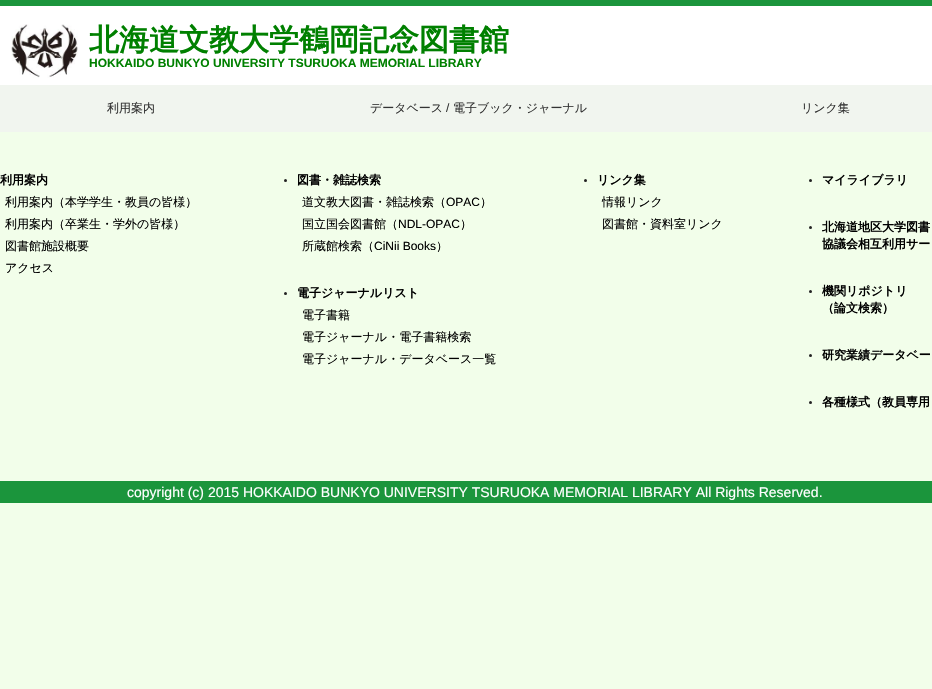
void draw(SkCanvas* canvas) {
    SkPaint paint;
    paint.setAntiAlias(true);
    canvas->clear(0xFFF2FEEA);
    paint.setColor(0xFF1B953C);
    canvas->drawRect(SkRect::MakeXYWH(0, 0, 932, 6), paint);
    paint.setColor(0xFFFFFFFF);
    canvas->drawRect(SkRect::MakeXYWH(0, 6, 932, 79), paint);
    canvas->drawImageRect(SkImages::DeferredFromEncodedData(SkData::MakeFromFileName("img1.png")), SkRect::MakeXYWH(11, 24, 67, 54), SkSamplingOptions());
    SkFont font1(fontMgr->matchFamilyStyle("WenQuanYi Zen Hei", SkFontStyle::Bold()), 30);
    font1.setSubpixel(true);
    paint.setColor(0xFF008000);
    canvas->drawString("北海道文教大学鶴岡記念図書館", 89, 50, font1, paint);
    SkFont font2(fontMgr->matchFamilyStyle("Liberation Sans", SkFontStyle::Bold()), 12);
    font2.setSubpixel(true);
    canvas->drawString("HOKKAIDO BUNKYO UNIVERSITY TSURUOKA MEMORIAL LIBRARY", 89, 67, font2, paint);
    paint.setColor(0xFFF1F5EF);
    canvas->drawRect(SkRect::MakeXYWH(0, 85, 932, 47), paint);
    SkFont font3(fontMgr->matchFamilyStyle("WenQuanYi Zen Hei", SkFontStyle(500, SkFontStyle::kNormal_Width, SkFontStyle::kUpright_Slant)), 12);
    font3.setSubpixel(true);
    paint.setColor(0xFF333333);
    canvas->drawString("利用案内", 107, 112, font3, paint);
    canvas->drawString("データベース", 370, 112, font3, paint);
    SkFont font4(fontMgr->matchFamilyStyle("Liberation Sans", SkFontStyle::Normal()), 12);
    font4.setSubpixel(true);
    canvas->drawString("/", 446, 112, font4, paint);
    canvas->drawString("電子ブック・ジャーナル", 453, 112, font3, paint);
    canvas->drawString("リンク集", 801, 112, font3, paint);
    SkFont font5(fontMgr->matchFamilyStyle("WenQuanYi Zen Hei", SkFontStyle::Bold()), 12);
    font5.setSubpixel(true);
    paint.setColor(0xFF000000);
    canvas->drawString("利用案内", 0, 184, font5, paint);
    canvas->drawString("利用案内（本学学生・教員の皆様）", 5, 206, font3, paint);
    canvas->drawString("利用案内（卒業生・学外の皆様）", 5, 228, font3, paint);
    canvas->drawString("図書館施設概要", 5, 250, font3, paint);
    canvas->drawString("アクセス", 5, 272, font3, paint);
    paint.setColor(0xFF222222);
    canvas->drawCircle(285.5f, 180.5f, 1.5f, paint);
    paint.setColor(0xFF000000);
    canvas->drawString("図書・雑誌検索", 297, 184, font5, paint);
    canvas->drawString("道文教大図書・雑誌検索（", 302, 206, font3, paint);
    canvas->drawString("OPAC", 446, 206, font4, paint);
    canvas->drawString("）", 480, 206, font3, paint);
    canvas->drawString("国立国会図書館（", 302, 228, font3, paint);
    canvas->drawString("NDL-OPAC", 398, 228, font4, paint);
    canvas->drawString("）", 460, 228, font3, paint);
    canvas->drawString("所蔵館検索（", 302, 250, font3, paint);
    canvas->drawString("CiNii Books", 374, 250, font4, paint);
    canvas->drawString("）", 436, 250, font3, paint);
    paint.setColor(0xFF222222);
    canvas->drawCircle(285.5f, 293.5f, 1.5f, paint);
    paint.setColor(0xFF000000);
    canvas->drawString("電子ジャーナルリスト", 297, 297, font5, paint);
    canvas->drawString("電子書籍", 302, 319, font3, paint);
    canvas->drawString("電子ジャーナル・電子書籍検索", 302, 341, font3, paint);
    canvas->drawString("電子ジャーナル・データベース一覧", 302, 363, font3, paint);
    paint.setColor(0xFF222222);
    canvas->drawCircle(585.5f, 180.5f, 1.5f, paint);
    paint.setColor(0xFF000000);
    canvas->drawString("リンク集", 597, 184, font5, paint);
    canvas->drawString("情報リンク", 602, 206, font3, paint);
    canvas->drawString("図書館・資料室リンク", 602, 228, font3, paint);
    paint.setColor(0xFF222222);
    canvas->drawCircle(810.5f, 180.5f, 1.5f, paint);
    paint.setColor(0xFF000000);
    canvas->drawString("マイライブラリ", 822, 184, font5, paint);
    paint.setColor(0xFF222222);
    canvas->drawCircle(810.5f, 227.5f, 1.5f, paint);
    paint.setColor(0xFF000000);
    canvas->drawString("北海道地区大学図書", 822, 231, font5, paint);
    canvas->drawString("協議会相互利用サー", 822, 248, font5, paint);
    paint.setColor(0xFF222222);
    canvas->drawCircle(810.5f, 291.5f, 1.5f, paint);
    paint.setColor(0xFF000000);
    canvas->drawString("機関リポジトリ", 822, 295, font5, paint);
    canvas->drawString("（論文検索）", 822, 312, font5, paint);
    paint.setColor(0xFF222222);
    canvas->drawCircle(810.5f, 355.5f, 1.5f, paint);
    paint.setColor(0xFF000000);
    canvas->drawString("研究業績データベー", 822, 359, font5, paint);
    paint.setColor(0xFF222222);
    canvas->drawCircle(810.5f, 402.5f, 1.5f, paint);
    paint.setColor(0xFF000000);
    canvas->drawString("各種様式（教員専用", 822, 406, font5, paint);
    paint.setColor(0xFF1B953C);
    canvas->drawRect(SkRect::MakeXYWH(0, 481, 932, 22), paint);
    SkFont font6(fontMgr->matchFamilyStyle("Liberation Sans", SkFontStyle::Normal()), 14);
    font6.setSubpixel(true);
    paint.setColor(0xFFFFFFFF);
    canvas->drawString("copyright (c) 2015 HOKKAIDO BUNKYO UNIVERSITY TSURUOKA MEMORIAL LIBRARY All Rights Reserved.", 127, 497, font6, paint);
}
